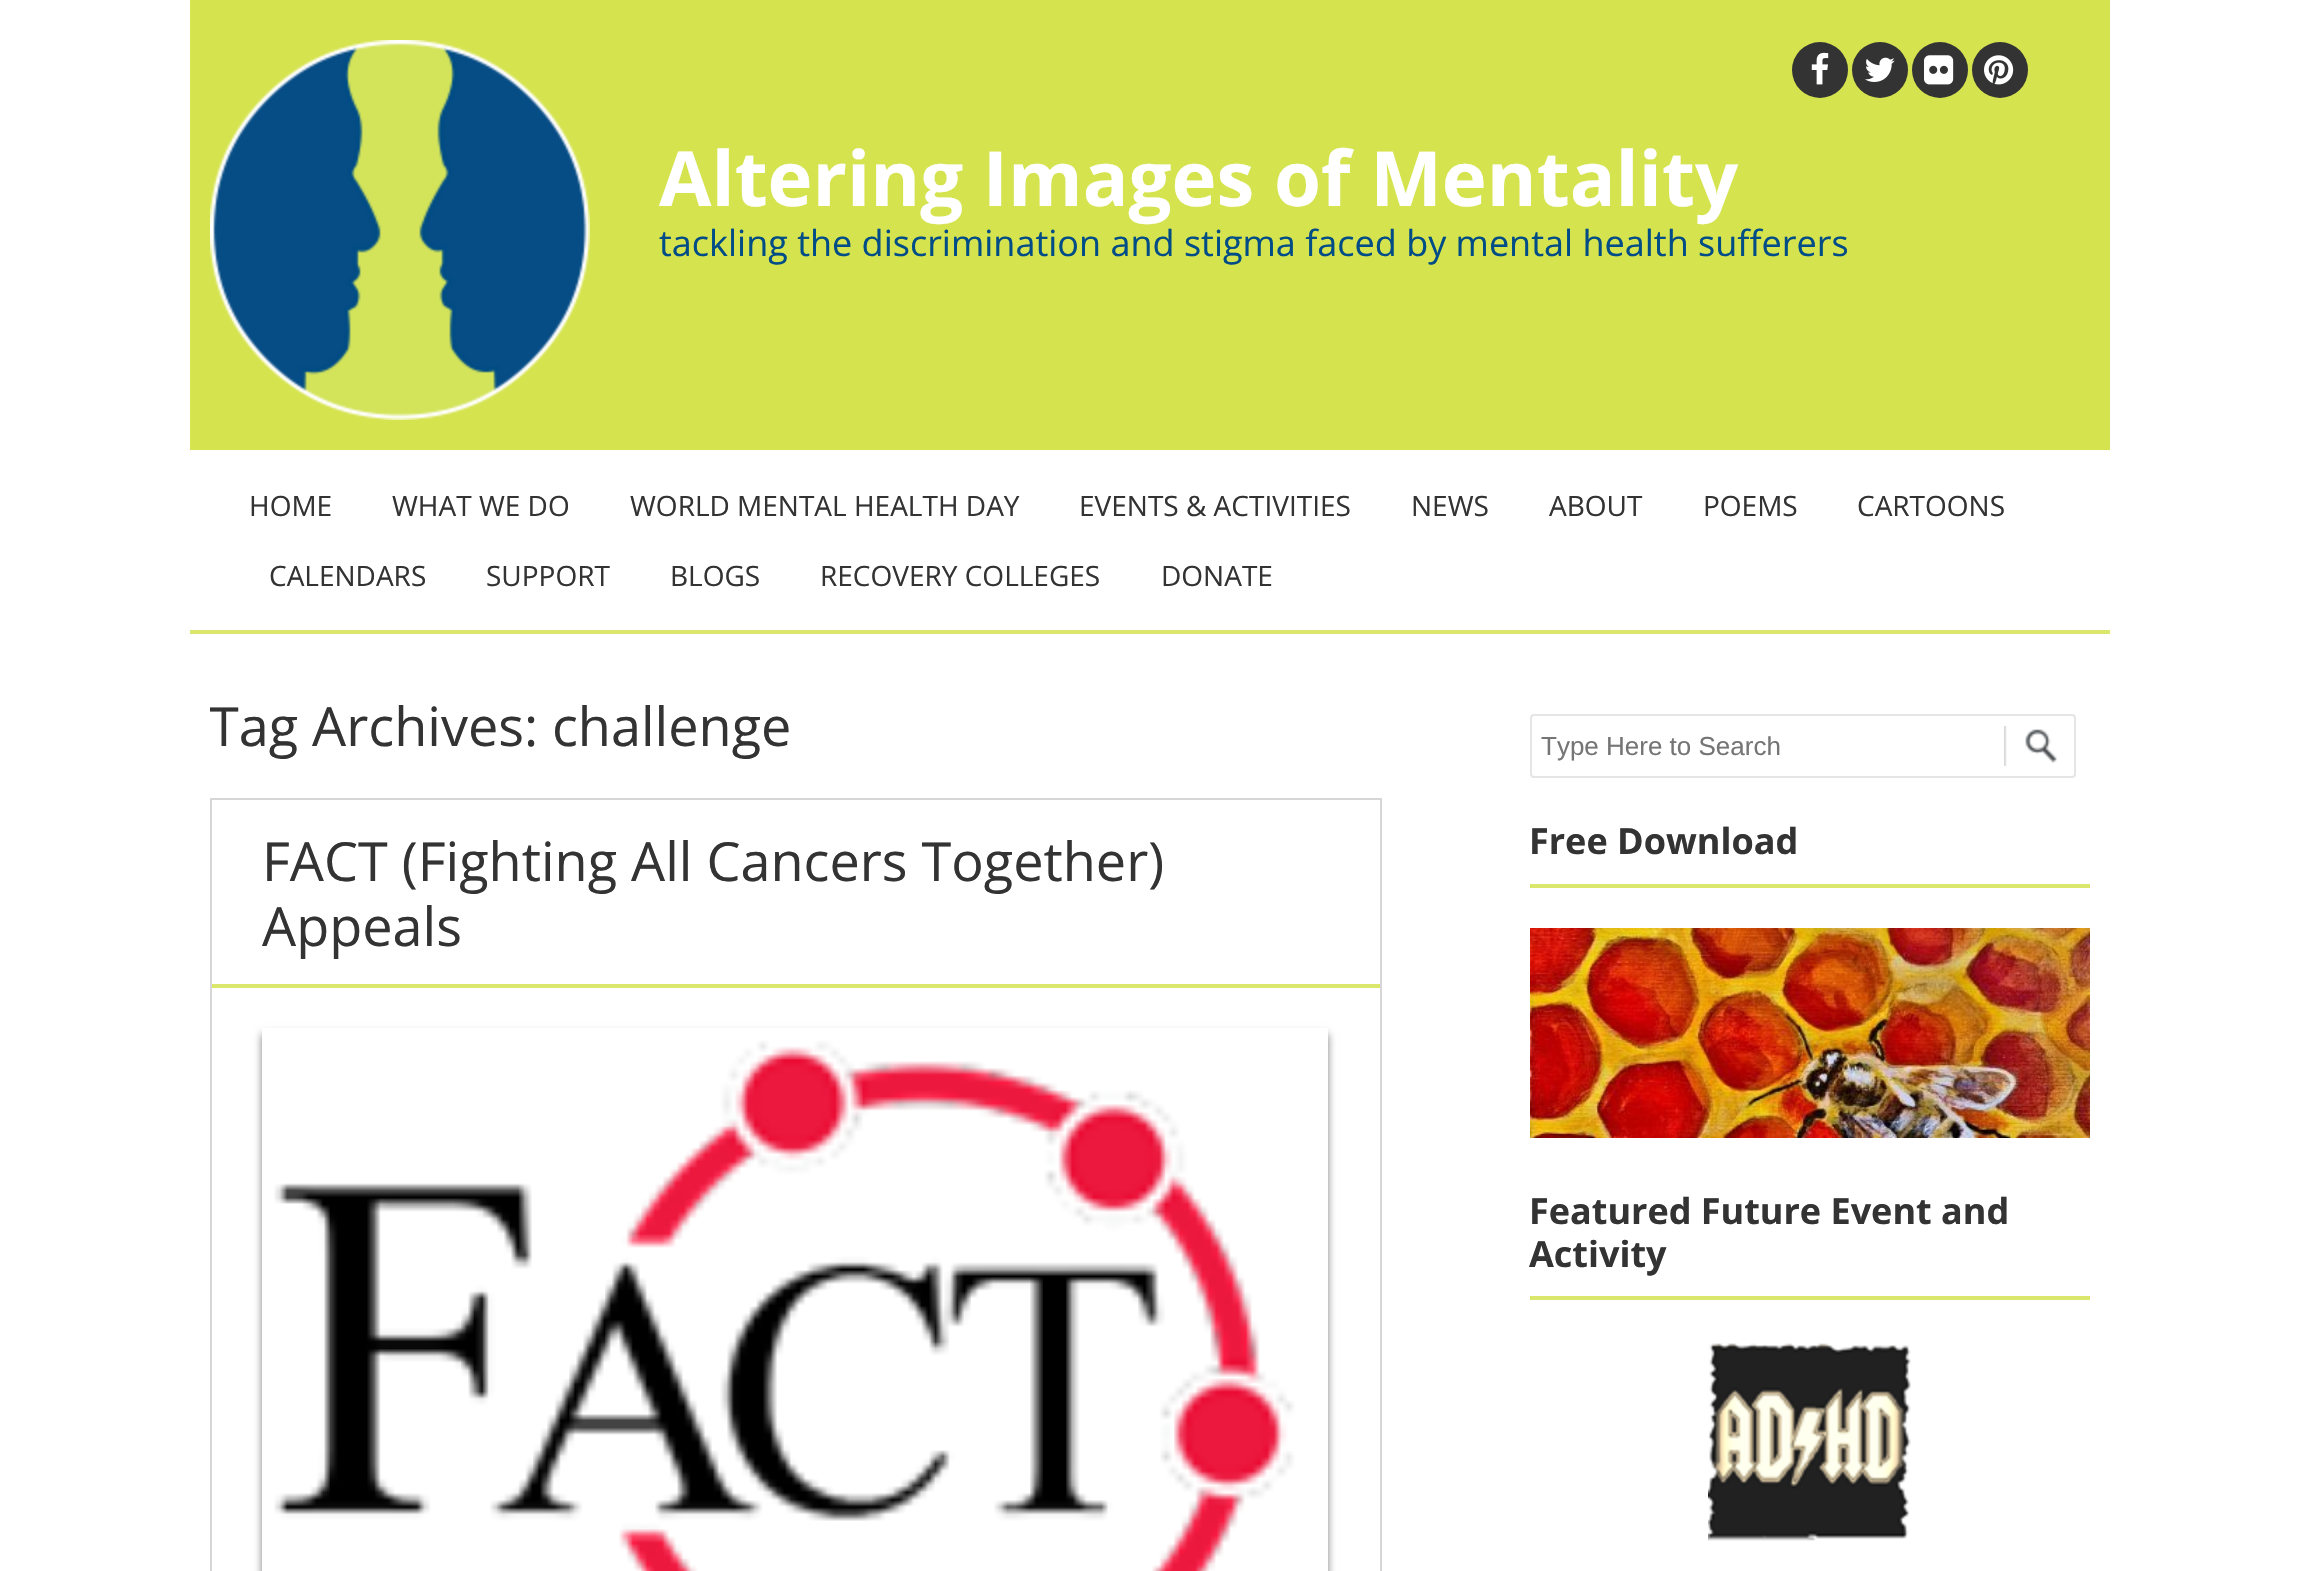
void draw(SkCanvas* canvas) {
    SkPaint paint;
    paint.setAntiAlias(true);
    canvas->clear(0xFFFFFFFF);
    paint.setColor(0xFFD5E34E);
    canvas->drawRect(SkRect::MakeXYWH(190, 0, 1920, 450), paint);
    canvas->drawImageRect(SkImages::DeferredFromEncodedData(SkData::MakeFromFileName("img1.png")), SkRect::MakeXYWH(210, 40, 380, 380), SkSamplingOptions());
    paint.setColor(0xFF333333);
    canvas->drawCircle(1820, 70, 28, paint);
    canvas->drawImageRect(SkImages::DeferredFromEncodedData(SkData::MakeFromFileName("img2.png")), SkRect::MakeXYWH(1811, 52, 18, 33), SkSamplingOptions());
    canvas->drawCircle(1880, 70, 28, paint);
    canvas->drawImageRect(SkImages::DeferredFromEncodedData(SkData::MakeFromFileName("img3.png")), SkRect::MakeXYWH(1865, 57, 30, 25), SkSamplingOptions());
    canvas->drawCircle(1940, 70, 28, paint);
    canvas->drawImageRect(SkImages::DeferredFromEncodedData(SkData::MakeFromFileName("img4.png")), SkRect::MakeXYWH(1924, 55, 30, 30), SkSamplingOptions());
    canvas->drawCircle(2000, 70, 28, paint);
    canvas->drawImageRect(SkImages::DeferredFromEncodedData(SkData::MakeFromFileName("img5.png")), SkRect::MakeXYWH(1984, 55, 30, 30), SkSamplingOptions());
    SkFont font1(fontMgr->matchFamilyStyle("Open Sans", SkFontStyle::Bold()), 76);
    font1.setSubpixel(true);
    paint.setColor(0xFFFFFFFF);
    canvas->drawString("Altering Images of Mentality", 659, 206, font1, paint);
    SkFont font2(fontMgr->matchFamilyStyle("Open Sans", SkFontStyle::Normal()), 36);
    font2.setSubpixel(true);
    paint.setColor(0xFF004C86);
    canvas->drawString("tackling the discrimination and stigma faced by mental health sufferers", 659, 256, font2, paint);
    paint.setColor(0xFFDBE66C);
    canvas->drawRect(SkRect::MakeXYWH(190, 630, 1920, 4), paint);
    SkFont font3(fontMgr->matchFamilyStyle("Open Sans", SkFontStyle::Normal()), 28);
    font3.setSubpixel(true);
    paint.setColor(0xFF333333);
    canvas->drawString("HOME", 249, 516, font3, paint);
    canvas->drawString("WHAT WE DO", 392, 516, font3, paint);
    canvas->drawString("WORLD MENTAL HEALTH DAY", 630, 516, font3, paint);
    canvas->drawString("EVENTS & ACTIVITIES", 1079, 516, font3, paint);
    canvas->drawString("NEWS", 1411, 516, font3, paint);
    canvas->drawString("ABOUT", 1549, 516, font3, paint);
    canvas->drawString("POEMS", 1703, 516, font3, paint);
    canvas->drawString("CARTOONS", 1857, 516, font3, paint);
    canvas->drawString("CALENDARS", 269, 586, font3, paint);
    canvas->drawString("SUPPORT", 486, 586, font3, paint);
    canvas->drawString("BLOGS", 670, 586, font3, paint);
    canvas->drawString("RECOVERY COLLEGES", 820, 586, font3, paint);
    canvas->drawString("DONATE", 1161, 586, font3, paint);
    canvas->save();
    canvas->clipRect(SkRect::MakeXYWH(210, 694, 1280, 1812));
    SkFont font4(fontMgr->matchFamilyStyle("Open Sans", SkFontStyle::Normal()), 54);
    font4.setSubpixel(true);
    canvas->drawString("Tag Archives:", 209, 746, font4, paint);
    canvas->restore();
    canvas->drawString("challenge", 552, 746, font4, paint);
    paint.setStyle(SkPaint::kStroke_Style);
    paint.setStrokeWidth(2);
    paint.setColor(0xFFD6D6D6);
    canvas->drawRect(SkRect::MakeXYWH(211, 799, 1170, 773), paint);
    paint.setStyle(SkPaint::kFill_Style);
    paint.setColor(0xFFDBE66C);
    canvas->drawRect(SkRect::MakeXYWH(212, 984, 1168, 4), paint);
    paint.setColor(0xFF333333);
    canvas->drawString("FACT (Fighting All Cancers Together)", 262, 881, font4, paint);
    canvas->drawString("Appeals", 262, 946, font4, paint);
    canvas->save();
    canvas->clipPath(SkPathBuilder(SkPathFillType::kEvenOdd).moveTo(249, 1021).lineTo(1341, 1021).lineTo(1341, 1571).lineTo(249, 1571).close().moveTo(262, 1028).lineTo(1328, 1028).lineTo(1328, 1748).lineTo(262, 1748).close().detach(), true);
    paint.setColor(0x80000000);
    paint.setMaskFilter(SkMaskFilter::MakeBlur(kNormal_SkBlurStyle, 4));
    canvas->drawRect(SkRect::MakeXYWH(262, 1034, 1066, 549), paint);
    paint.setMaskFilter(nullptr);
    canvas->restore();
    canvas->drawImageRect(SkImages::DeferredFromEncodedData(SkData::MakeFromFileName("img6.png")), SkRect::MakeXYWH(274, 1040, 1021, 531), SkSamplingOptions());
    canvas->drawImageRect(SkImages::DeferredFromEncodedData(SkData::MakeFromFileName("img7.png")), SkRect::MakeXYWH(2004, 726, 53, 40), SkSamplingOptions());
    paint.setStyle(SkPaint::kStroke_Style);
    paint.setColor(0xFFE5E5E5);
    canvas->drawRoundRect(SkRect::MakeXYWH(1531, 715, 544, 62), 3, 3, paint);
    SkFont font5(fontMgr->matchFamilyStyle("Liberation Sans", SkFontStyle::Normal()), 26);
    font5.setSubpixel(true);
    paint.setStyle(SkPaint::kFill_Style);
    paint.setColor(0xFF757575);
    canvas->drawString("Type Here to Search", 1541, 755, font5, paint);
    paint.setColor(0xFFDBE66C);
    canvas->drawRect(SkRect::MakeXYWH(1530, 884, 560, 4), paint);
    SkFont font6(fontMgr->matchFamilyStyle("Open Sans", SkFontStyle::Bold()), 36);
    font6.setSubpixel(true);
    paint.setColor(0xFF333333);
    canvas->drawString("Free Download", 1529, 854, font6, paint);
    canvas->drawImageRect(SkImages::DeferredFromEncodedData(SkData::MakeFromFileName("img8.png")), SkRect::MakeXYWH(1530, 928, 560, 210), SkSamplingOptions());
    paint.setColor(0xFFDBE66C);
    canvas->drawRect(SkRect::MakeXYWH(1530, 1296, 560, 4), paint);
    paint.setColor(0xFF333333);
    canvas->drawString("Featured Future Event and", 1529, 1224, font6, paint);
    canvas->drawString("Activity", 1529, 1267, font6, paint);
    canvas->drawImageRect(SkImages::DeferredFromEncodedData(SkData::MakeFromFileName("img9.png")), SkRect::MakeXYWH(1708, 1343, 203, 198), SkSamplingOptions());
}
